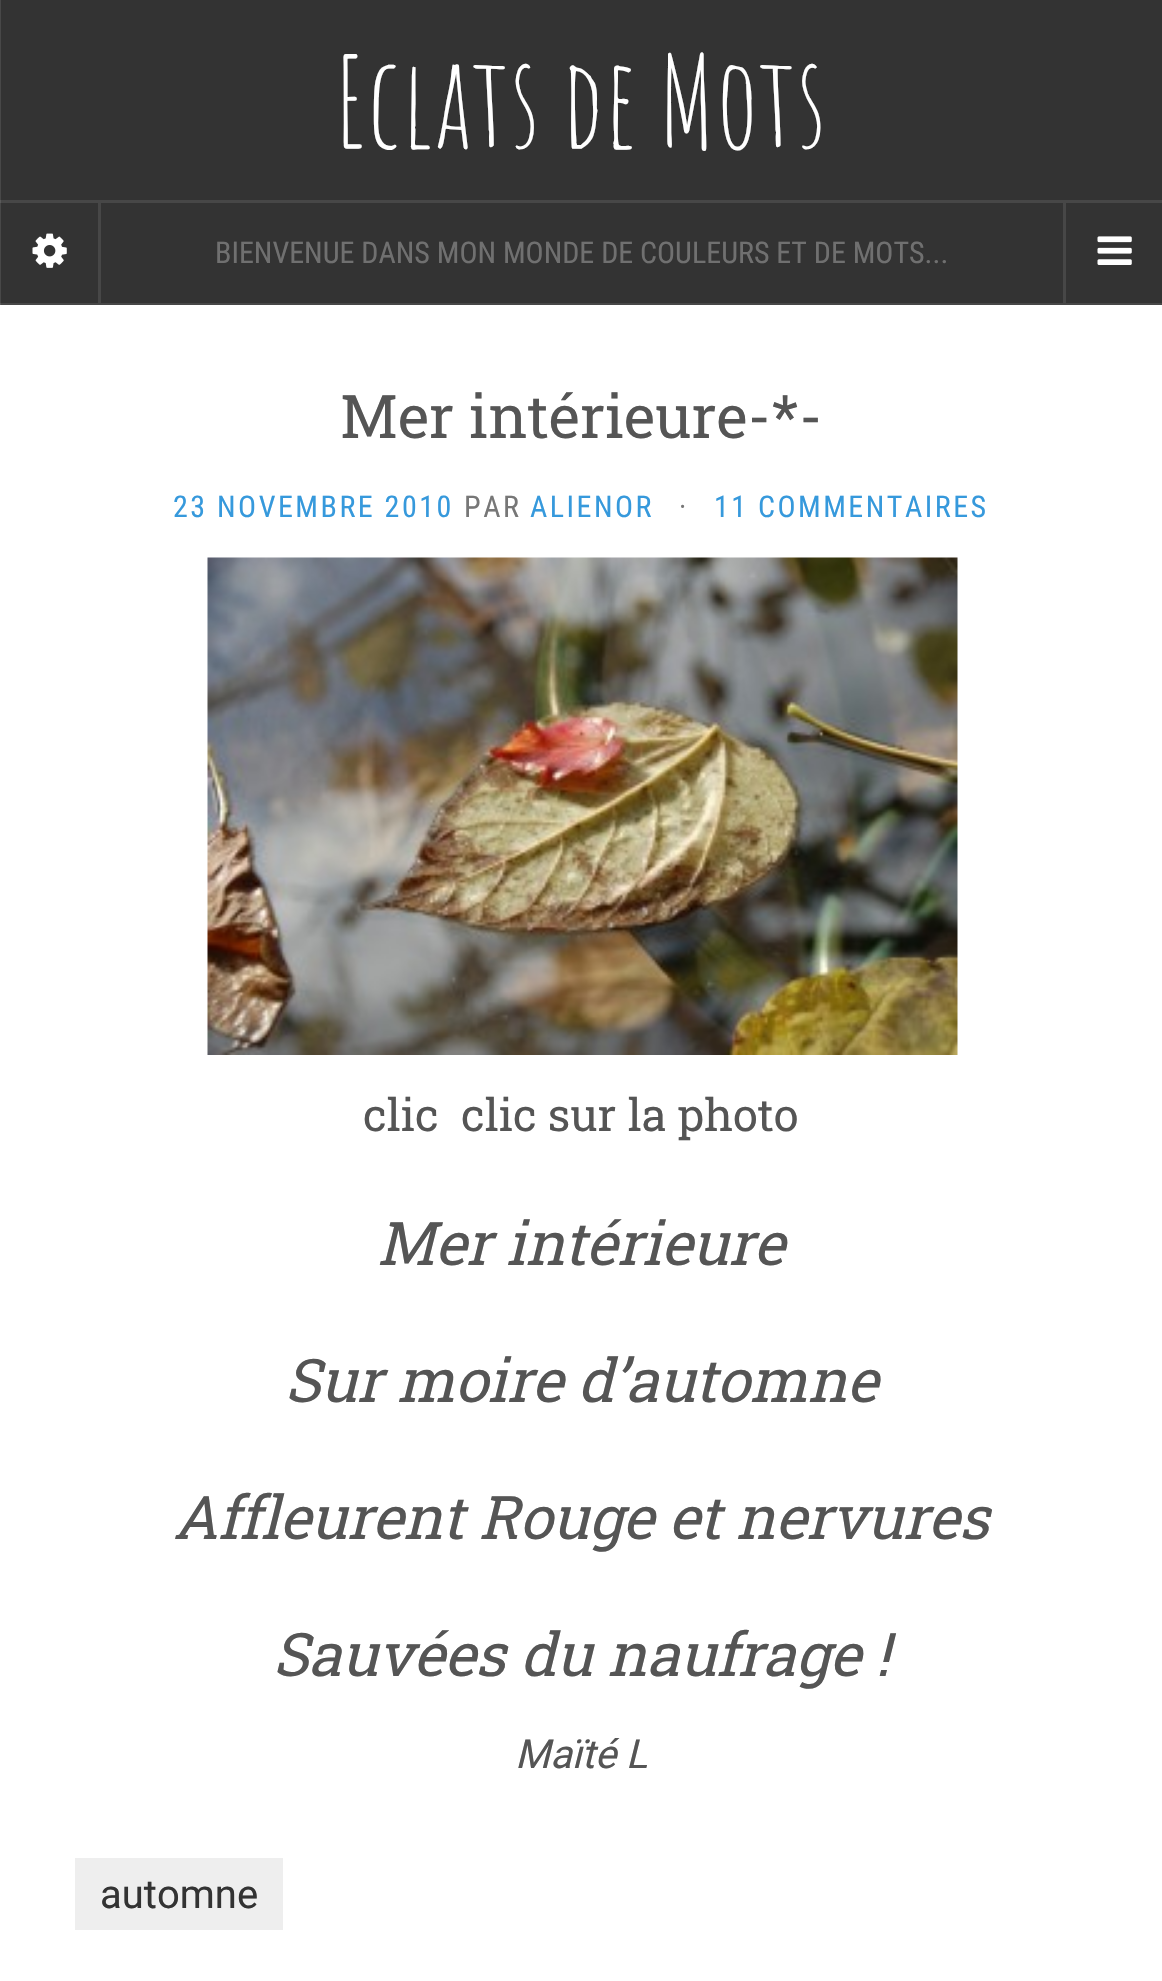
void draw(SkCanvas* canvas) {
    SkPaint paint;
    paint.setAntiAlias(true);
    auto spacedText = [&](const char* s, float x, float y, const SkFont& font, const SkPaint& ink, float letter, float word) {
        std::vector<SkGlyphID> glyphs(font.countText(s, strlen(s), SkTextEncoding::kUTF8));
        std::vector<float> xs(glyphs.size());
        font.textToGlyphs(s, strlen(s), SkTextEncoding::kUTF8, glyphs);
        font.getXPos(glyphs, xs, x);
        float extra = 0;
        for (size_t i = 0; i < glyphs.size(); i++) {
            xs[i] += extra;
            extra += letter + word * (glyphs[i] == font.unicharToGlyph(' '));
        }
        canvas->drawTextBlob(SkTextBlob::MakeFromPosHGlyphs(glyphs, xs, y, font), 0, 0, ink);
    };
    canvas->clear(0xFF333333);
    paint.setColor(0xFF474747);
    canvas->drawRect(SkRect::MakeXYWH(0, 303, 1162, 2), paint);
    canvas->drawRect(SkRect::MakeXYWH(0, 200, 1162, 3), paint);
    paint.setColor(0x1AFFFFFF);
    canvas->drawRect(SkRect::MakeXYWH(0, 0, 1, 305), paint);
    paint.setColor(0xFF474747);
    canvas->drawRect(SkRect::MakeXYWH(98, 203, 3, 100), paint);
    canvas->drawImageRect(SkImages::DeferredFromEncodedData(SkData::MakeFromFileName("img1.png")), SkRect::MakeXYWH(32, 233, 35, 35), SkSamplingOptions());
    SkFont font1(fontMgr->matchFamilyStyle("Amatic SC", SkFontStyle::Normal()), 125);
    font1.setSubpixel(true);
    paint.setColor(0xFFFFFFFF);
    canvas->drawString("Eclats de Mots", 335, 148, font1, paint);
    SkFont font2(fontMgr->matchFamilyStyle("Roboto Condensed", SkFontStyle::Normal()), 30);
    font2.setSubpixel(true);
    paint.setColor(0xFF707070);
    canvas->drawString("BIENVENUE DANS MON MONDE DE COULEURS ET DE MOTS...", 215, 263, font2, paint);
    paint.setColor(0xFF474747);
    canvas->drawRect(SkRect::MakeXYWH(1063, 203, 3, 100), paint);
    canvas->drawImageRect(SkImages::DeferredFromEncodedData(SkData::MakeFromFileName("img2.png")), SkRect::MakeXYWH(1097, 236, 35, 29), SkSamplingOptions());
    paint.setColor(0xFFFFFFFF);
    canvas->drawRect(SkRect::MakeXYWH(0, 305, 1162, 1676), paint);
    SkFont font3(fontMgr->matchFamilyStyle("Roboto Slab", SkFontStyle::Normal()), 60);
    font3.setSubpixel(true);
    paint.setColor(0xFF555555);
    canvas->drawString("Mer intérieure-*-", 340, 438, font3, paint);
    paint.setColor(0xFF3699DC);
    spacedText("23 NOVEMBRE 2010", 173, 517, font2, paint, 2.5f, 0);
    paint.setColor(0xFF777777);
    spacedText("PAR", 464, 517, font2, paint, 2.5f, 0);
    paint.setColor(0xFF3699DC);
    spacedText("ALIENOR", 530, 517, font2, paint, 2.5f, 0);
    paint.setColor(0xFF777777);
    spacedText("·", 679, 517, font2, paint, 2.5f, 0);
    paint.setColor(0xFF3699DC);
    spacedText("11 COMMENTAIRES", 714, 517, font2, paint, 2.5f, 0);
    canvas->drawImageRect(SkImages::DeferredFromEncodedData(SkData::MakeFromFileName("img3.png")), SkRect::MakeXYWH(207, 557, 751, 498), SkSamplingOptions());
    SkFont font4(fontMgr->matchFamilyStyle("Roboto Slab", SkFontStyle::Normal()), 45);
    font4.setSubpixel(true);
    paint.setColor(0xFF555555);
    canvas->drawString("clic  clic sur la photo", 363, 1131, font4, paint);
    SkFont font5(fontMgr->matchFamilyStyle("Roboto Slab", SkFontStyle::Italic()), 60);
    font5.setSubpixel(true);
    canvas->drawString("Mer intérieure", 377, 1265, font5, paint);
    canvas->drawString("Sur moire d’automne", 285, 1402, font5, paint);
    canvas->drawString("Affleurent Rouge et nervures", 173, 1539, font5, paint);
    canvas->drawString("Sauvées du naufrage !", 273, 1676, font5, paint);
    SkFont font6(fontMgr->matchFamilyStyle("Roboto", SkFontStyle::Italic()), 40);
    font6.setSubpixel(true);
    canvas->drawString("Maïté L", 515, 1768, font6, paint);
    paint.setColor(0xFFEEEEEE);
    canvas->drawRect(SkRect::MakeXYWH(75, 1858, 208, 72), paint);
    SkFont font7(fontMgr->matchFamilyStyle("Roboto", SkFontStyle::Normal()), 40);
    font7.setSubpixel(true);
    paint.setColor(0xFF333333);
    canvas->drawString("automne", 100, 1908, font7, paint);
}
